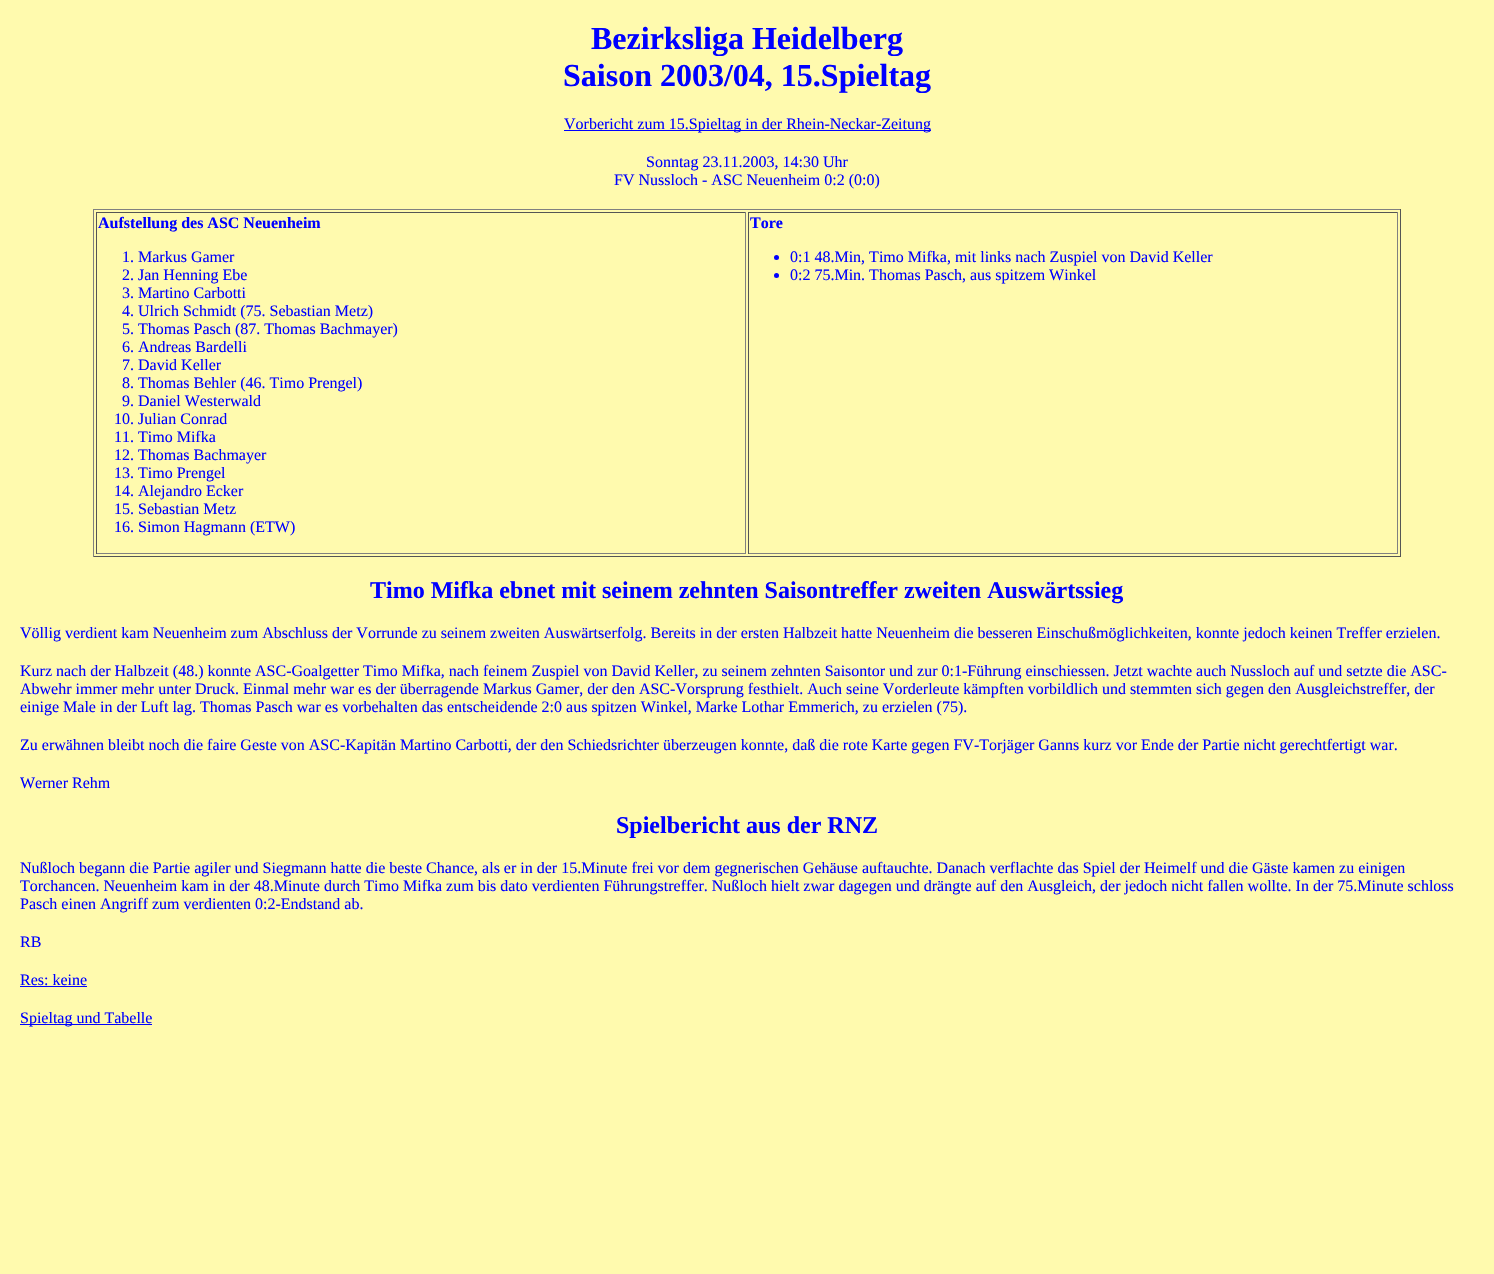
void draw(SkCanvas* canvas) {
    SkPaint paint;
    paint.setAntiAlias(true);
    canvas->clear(0xFFFFFAAE);
    SkFont font1(fontMgr->matchFamilyStyle("Liberation Serif", SkFontStyle::Bold()), 32);
    font1.setSubpixel(true);
    paint.setColor(0xFF0000FF);
    canvas->drawString("Bezirksliga Heidelberg", 591, 49, font1, paint);
    canvas->drawString("Saison 2003/04, 15.Spieltag", 563, 86, font1, paint);
    canvas->drawRect(SkRect::MakeXYWH(564, 130, 367, 1), paint);
    SkFont font2(fontMgr->matchFamilyStyle("Liberation Serif", SkFontStyle::Normal()), 16);
    font2.setSubpixel(true);
    canvas->drawString("Vorbericht zum 15.Spieltag in der Rhein-Neckar-Zeitung", 564, 129, font2, paint);
    canvas->drawString("Sonntag 23.11.2003, 14:30 Uhr", 646, 167, font2, paint);
    canvas->drawString("FV Nussloch - ASC Neuenheim 0:2 (0:0)", 614, 185, font2, paint);
    paint.setColor(0xFF808080);
    canvas->drawRect(SkRect::MakeXYWH(93, 209, 1308, 1), paint);
    paint.setColor(0xFF555555);
    canvas->drawRect(SkRect::MakeXYWH(1400, 209, 1, 348), paint);
    canvas->drawRect(SkRect::MakeXYWH(93, 556, 1308, 1), paint);
    paint.setColor(0xFF808080);
    canvas->drawRect(SkRect::MakeXYWH(93, 209, 1, 348), paint);
    paint.setColor(0xFF555555);
    canvas->drawRect(SkRect::MakeXYWH(96, 212, 650, 1), paint);
    paint.setColor(0xFF808080);
    canvas->drawRect(SkRect::MakeXYWH(745, 212, 1, 342), paint);
    canvas->drawRect(SkRect::MakeXYWH(96, 553, 650, 1), paint);
    paint.setColor(0xFF555555);
    canvas->drawRect(SkRect::MakeXYWH(96, 212, 1, 342), paint);
    SkFont font3(fontMgr->matchFamilyStyle("Liberation Serif", SkFontStyle::Bold()), 16);
    font3.setSubpixel(true);
    paint.setColor(0xFF0000FF);
    canvas->drawString("Aufstellung des ASC Neuenheim", 98, 228, font3, paint);
    canvas->drawString("1. Markus Gamer", 122, 262, font2, paint);
    canvas->drawString("2. Jan Henning Ebe", 122, 280, font2, paint);
    canvas->drawString("3. Martino Carbotti", 122, 298, font2, paint);
    canvas->drawString("4. Ulrich Schmidt (75. Sebastian Metz)", 122, 316, font2, paint);
    canvas->drawString("5. Thomas Pasch (87. Thomas Bachmayer)", 122, 334, font2, paint);
    canvas->drawString("6. Andreas Bardelli", 122, 352, font2, paint);
    canvas->drawString("7. David Keller", 122, 370, font2, paint);
    canvas->drawString("8. Thomas Behler (46. Timo Prengel)", 122, 388, font2, paint);
    canvas->drawString("9. Daniel Westerwald", 122, 406, font2, paint);
    canvas->drawString("10. Julian Conrad", 114, 424, font2, paint);
    canvas->drawString("11. Timo Mifka", 114, 442, font2, paint);
    canvas->drawString("12. Thomas Bachmayer", 114, 460, font2, paint);
    canvas->drawString("13. Timo Prengel", 114, 478, font2, paint);
    canvas->drawString("14. Alejandro Ecker", 114, 496, font2, paint);
    canvas->drawString("15. Sebastian Metz", 114, 514, font2, paint);
    canvas->drawString("16. Simon Hagmann (ETW)", 114, 532, font2, paint);
    paint.setColor(0xFF555555);
    canvas->drawRect(SkRect::MakeXYWH(748, 212, 650, 1), paint);
    paint.setColor(0xFF808080);
    canvas->drawRect(SkRect::MakeXYWH(1397, 212, 1, 342), paint);
    canvas->drawRect(SkRect::MakeXYWH(748, 553, 650, 1), paint);
    paint.setColor(0xFF555555);
    canvas->drawRect(SkRect::MakeXYWH(748, 212, 1, 342), paint);
    paint.setColor(0xFF0000FF);
    canvas->drawString("Tore", 750, 228, font3, paint);
    canvas->drawCircle(776.5f, 257.5f, 2.5f, paint);
    canvas->drawString("0:1 48.Min, Timo Mifka, mit links nach Zuspiel von David Keller", 790, 262, font2, paint);
    canvas->drawCircle(776.5f, 275.5f, 2.5f, paint);
    canvas->drawString("0:2 75.Min. Thomas Pasch, aus spitzem Winkel", 790, 280, font2, paint);
    SkFont font4(fontMgr->matchFamilyStyle("Liberation Serif", SkFontStyle::Bold()), 24);
    font4.setSubpixel(true);
    canvas->drawString("Timo Mifka ebnet mit seinem zehnten Saisontreffer zweiten Auswärtssieg", 370, 598, font4, paint);
    canvas->drawString("Völlig verdient kam Neuenheim zum Abschluss der Vorrunde zu seinem zweiten Auswärtserfolg. Bereits in der ersten Halbzeit hatte Neuenheim die besseren Einschußmöglichkeiten, konnte jedoch keinen Treffer erzielen.", 20, 638, font2, paint);
    canvas->drawString("Kurz nach der Halbzeit (48.) konnte ASC-Goalgetter Timo Mifka, nach feinem Zuspiel von David Keller, zu seinem zehnten Saisontor und zur 0:1-Führung einschiessen. Jetzt wachte auch Nussloch auf und setzte die ASC-", 20, 676, font2, paint);
    canvas->drawString("Abwehr immer mehr unter Druck. Einmal mehr war es der überragende Markus Gamer, der den ASC-Vorsprung festhielt. Auch seine Vorderleute kämpften vorbildlich und stemmten sich gegen den Ausgleichstreffer, der", 20, 694, font2, paint);
    canvas->drawString("einige Male in der Luft lag. Thomas Pasch war es vorbehalten das entscheidende 2:0 aus spitzen Winkel, Marke Lothar Emmerich, zu erzielen (75).", 20, 712, font2, paint);
    canvas->drawString("Zu erwähnen bleibt noch die faire Geste von ASC-Kapitän Martino Carbotti, der den Schiedsrichter überzeugen konnte, daß die rote Karte gegen FV-Torjäger Ganns kurz vor Ende der Partie nicht gerechtfertigt war.", 20, 750, font2, paint);
    canvas->drawString("Werner Rehm", 20, 788, font2, paint);
    canvas->drawString("Spielbericht aus der RNZ", 616, 833, font4, paint);
    canvas->drawString("Nußloch begann die Partie agiler und Siegmann hatte die beste Chance, als er in der 15.Minute frei vor dem gegnerischen Gehäuse auftauchte. Danach verflachte das Spiel der Heimelf und die Gäste kamen zu einigen", 20, 873, font2, paint);
    canvas->drawString("Torchancen. Neuenheim kam in der 48.Minute durch Timo Mifka zum bis dato verdienten Führungstreffer. Nußloch hielt zwar dagegen und drängte auf den Ausgleich, der jedoch nicht fallen wollte. In der 75.Minute schloss", 20, 891, font2, paint);
    canvas->drawString("Pasch einen Angriff zum verdienten 0:2-Endstand ab.", 20, 909, font2, paint);
    canvas->drawString("RB", 20, 947, font2, paint);
    canvas->drawString("Res: keine", 20, 985, font2, paint);
    canvas->drawRect(SkRect::MakeXYWH(20, 986, 67, 1), paint);
    canvas->drawRect(SkRect::MakeXYWH(20, 1024, 132, 1), paint);
    canvas->drawString("Spieltag und Tabelle", 20, 1023, font2, paint);
}
